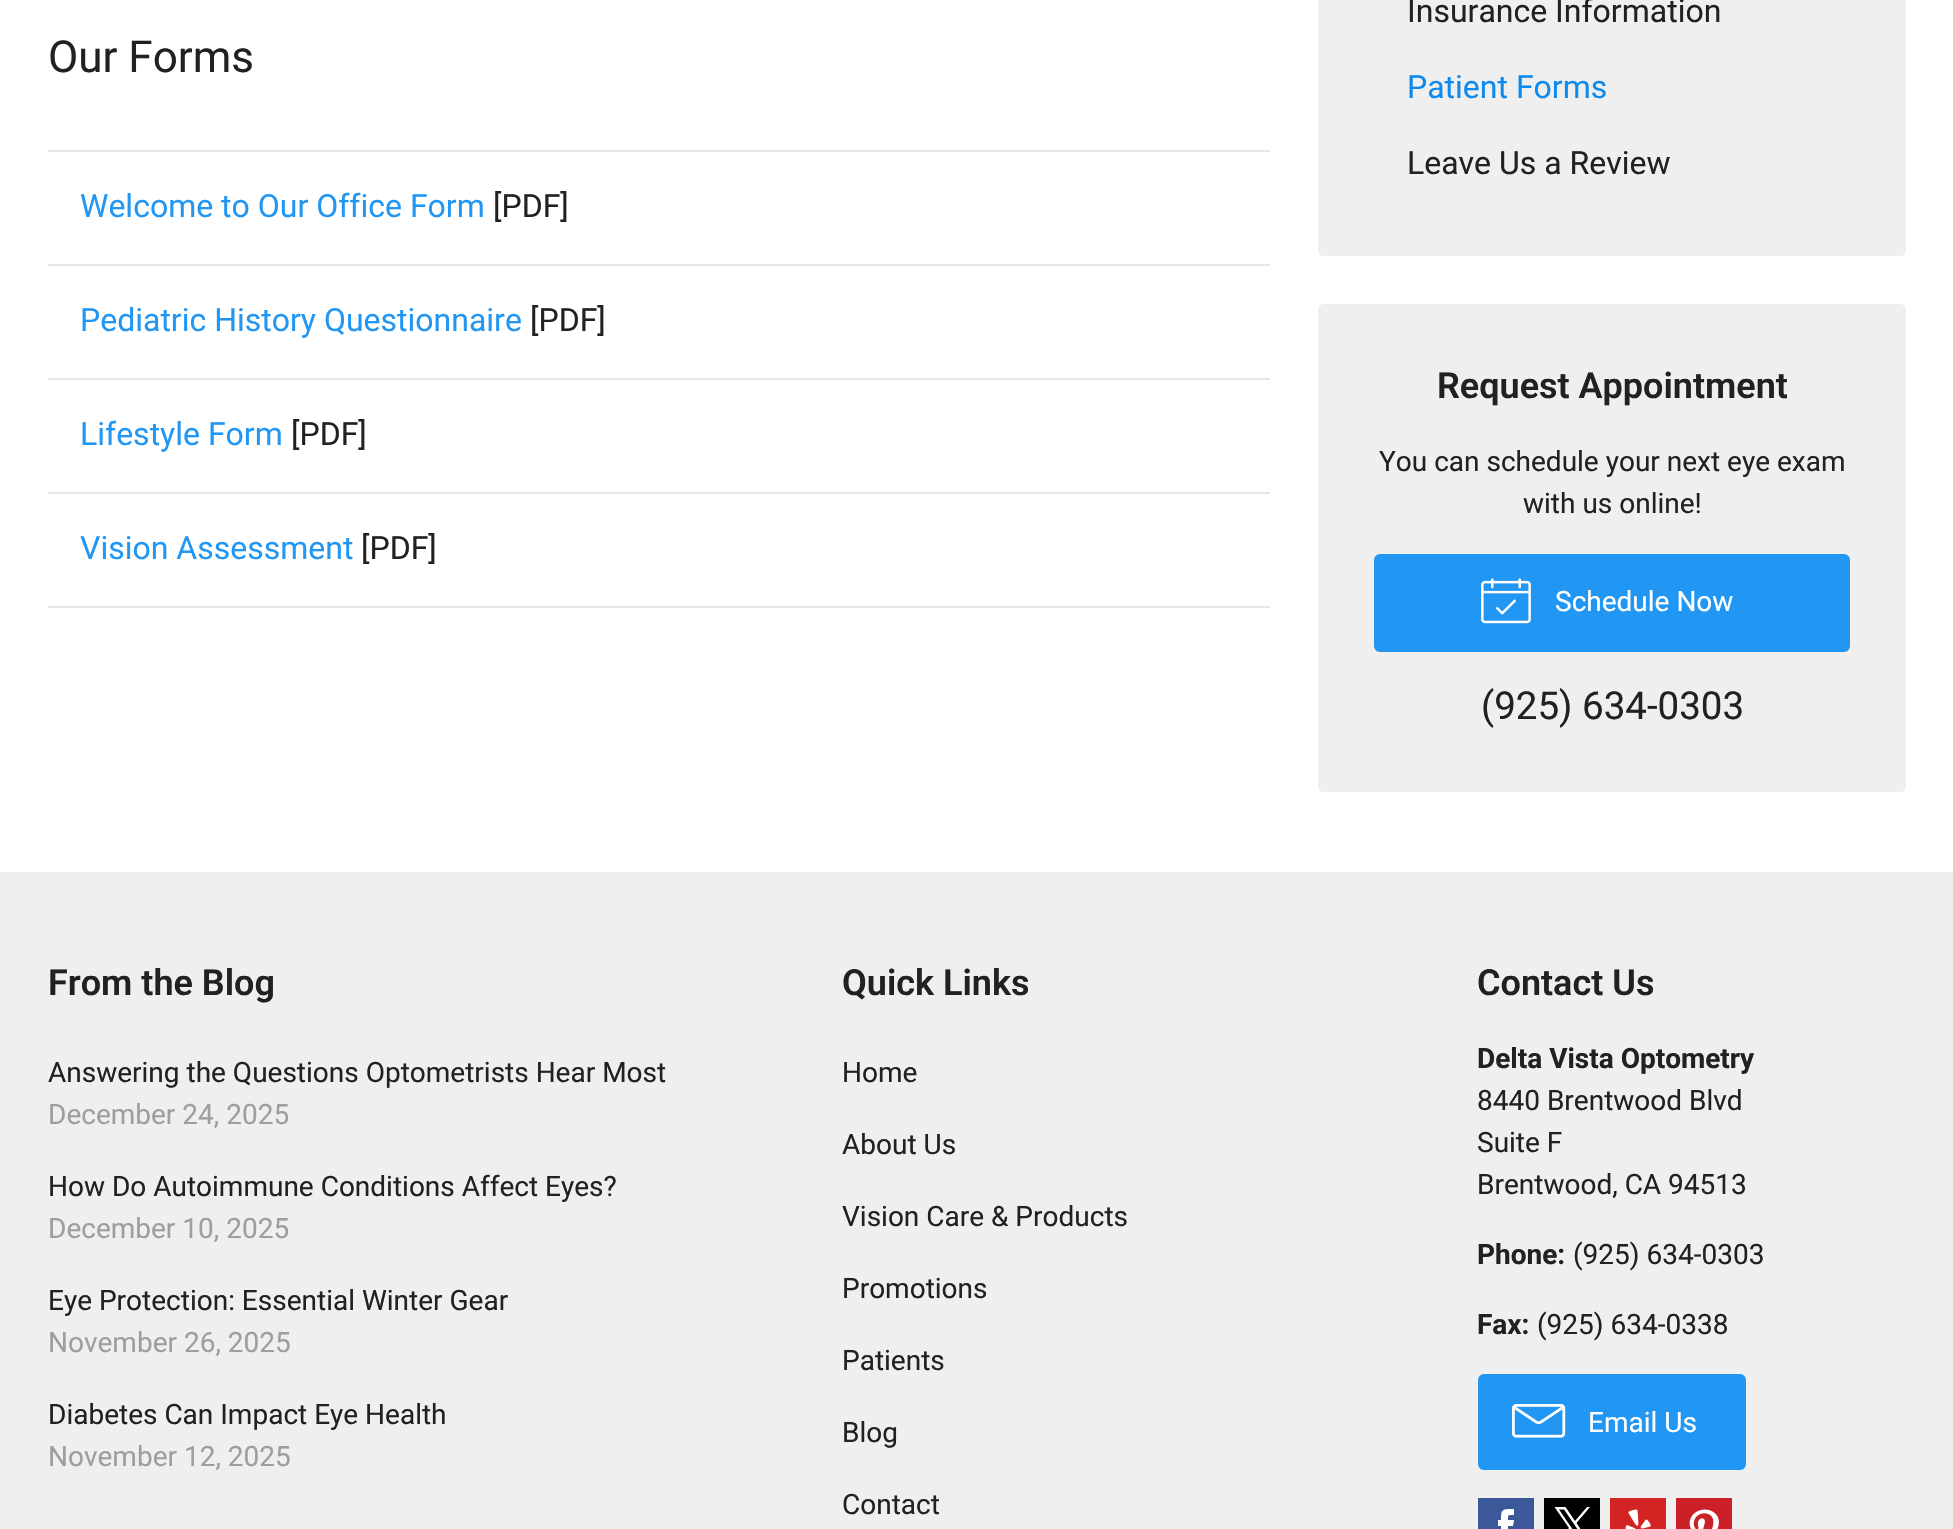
void draw(SkCanvas* canvas) {
    SkPaint paint;
    paint.setAntiAlias(true);
    canvas->clear(0xFFEFEFEF);
    paint.setColor(0xFFFFFFFF);
    canvas->drawRect(SkRect::MakeXYWH(0, 0, 1953, 872), paint);
    SkFont font1(fontMgr->matchFamilyStyle("Roboto", SkFontStyle::Normal()), 44);
    font1.setSubpixel(true);
    paint.setColor(0xFF212121);
    canvas->drawString("Our Forms", 48, 72, font1, paint);
    paint.setColor(0xFFE6E6E6);
    canvas->drawRect(SkRect::MakeXYWH(48, 150, 1222, 2), paint);
    canvas->drawRect(SkRect::MakeXYWH(48, 264, 1222, 2), paint);
    SkFont font2(fontMgr->matchFamilyStyle("Roboto", SkFontStyle::Normal()), 32);
    font2.setSubpixel(true);
    paint.setColor(0xFF2196F3);
    canvas->drawString("Welcome to Our Office Form", 80, 217, font2, paint);
    paint.setColor(0xFF212121);
    canvas->drawString("[PDF]", 493, 217, font2, paint);
    paint.setColor(0xFFE6E6E6);
    canvas->drawRect(SkRect::MakeXYWH(48, 378, 1222, 2), paint);
    paint.setColor(0xFF2196F3);
    canvas->drawString("Pediatric History Questionnaire", 80, 331, font2, paint);
    paint.setColor(0xFF212121);
    canvas->drawString("[PDF]", 530, 331, font2, paint);
    paint.setColor(0xFFE6E6E6);
    canvas->drawRect(SkRect::MakeXYWH(48, 492, 1222, 2), paint);
    paint.setColor(0xFF2196F3);
    canvas->drawString("Lifestyle Form", 80, 445, font2, paint);
    paint.setColor(0xFF212121);
    canvas->drawString("[PDF]", 291, 445, font2, paint);
    paint.setColor(0xFFE6E6E6);
    canvas->drawRect(SkRect::MakeXYWH(48, 606, 1222, 2), paint);
    paint.setColor(0xFF2196F3);
    canvas->drawString("Vision Assessment", 80, 559, font2, paint);
    paint.setColor(0xFF212121);
    canvas->drawString("[PDF]", 361, 559, font2, paint);
    paint.setColor(0xFFEFEFEF);
    canvas->drawRoundRect(SkRect::MakeXYWH(1318, -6, 588, 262), 6, 6, paint);
    paint.setColor(0xFF212121);
    canvas->drawString("Insurance Information", 1407, 22, font2, paint);
    paint.setColor(0xFF0D8AEE);
    canvas->drawString("Patient Forms", 1407, 98, font2, paint);
    paint.setColor(0xFF212121);
    canvas->drawString("Leave Us a Review", 1407, 174, font2, paint);
    paint.setColor(0xFFEFEFEF);
    canvas->drawRoundRect(SkRect::MakeXYWH(1318, 304, 588, 488), 6, 6, paint);
    SkFont font3(fontMgr->matchFamilyStyle("Roboto", SkFontStyle(600, SkFontStyle::kNormal_Width, SkFontStyle::kUpright_Slant)), 36);
    font3.setSubpixel(true);
    paint.setColor(0xFF212121);
    canvas->drawString("Request Appointment", 1437, 398, font3, paint);
    SkFont font4(fontMgr->matchFamilyStyle("Roboto", SkFontStyle::Normal()), 28);
    font4.setSubpixel(true);
    canvas->drawString("You can schedule your next eye exam", 1379, 471, font4, paint);
    canvas->drawString("with us online!", 1523, 513, font4, paint);
    paint.setColor(0xFF2196F3);
    canvas->drawRoundRect(SkRect::MakeXYWH(1374, 554, 476, 98), 6, 6, paint);
    canvas->drawImageRect(SkImages::DeferredFromEncodedData(SkData::MakeFromFileName("img1.png")), SkRect::MakeXYWH(1481, 578, 50, 46), SkSamplingOptions());
    paint.setColor(0xFFFFFFFF);
    canvas->drawString("Schedule Now", 1555, 611, font4, paint);
    SkFont font5(fontMgr->matchFamilyStyle("Roboto", SkFontStyle::Normal()), 38.5f);
    font5.setSubpixel(true);
    paint.setColor(0xFF212121);
    canvas->drawString("(925) 634-0303", 1481, 719, font5, paint);
    canvas->drawString("From the Blog", 48, 995, font3, paint);
    canvas->drawString("Answering the Questions Optometrists Hear Most", 48, 1082, font4, paint);
    paint.setColor(0xFF9E9E9E);
    canvas->drawString("December 24, 2025", 48, 1124, font4, paint);
    paint.setColor(0xFF212121);
    canvas->drawString("How Do Autoimmune Conditions Affect Eyes?", 48, 1196, font4, paint);
    paint.setColor(0xFF9E9E9E);
    canvas->drawString("December 10, 2025", 48, 1238, font4, paint);
    paint.setColor(0xFF212121);
    canvas->drawString("Eye Protection: Essential Winter Gear", 48, 1310, font4, paint);
    paint.setColor(0xFF9E9E9E);
    canvas->drawString("November 26, 2025", 48, 1352, font4, paint);
    paint.setColor(0xFF212121);
    canvas->drawString("Diabetes Can Impact Eye Health", 48, 1424, font4, paint);
    paint.setColor(0xFF9E9E9E);
    canvas->drawString("November 12, 2025", 48, 1466, font4, paint);
    paint.setColor(0xFF212121);
    canvas->drawString("Quick Links", 842, 995, font3, paint);
    canvas->drawString("Home", 842, 1082, font4, paint);
    canvas->drawString("About Us", 842, 1154, font4, paint);
    canvas->drawString("Vision Care & Products", 842, 1226, font4, paint);
    canvas->drawString("Promotions", 842, 1298, font4, paint);
    canvas->drawString("Patients", 842, 1370, font4, paint);
    canvas->drawString("Blog", 842, 1442, font4, paint);
    canvas->drawString("Contact", 842, 1514, font4, paint);
    canvas->drawString("Contact Us", 1477, 995, font3, paint);
    SkFont font6(fontMgr->matchFamilyStyle("Roboto", SkFontStyle::Bold()), 28);
    font6.setSubpixel(true);
    canvas->drawString("Delta Vista Optometry", 1477, 1068, font6, paint);
    canvas->drawString("8440 Brentwood Blvd", 1477, 1110, font4, paint);
    canvas->drawString("Suite F", 1477, 1152, font4, paint);
    canvas->drawString("Brentwood, CA 94513", 1477, 1194, font4, paint);
    canvas->drawString("Phone:", 1477, 1264, font6, paint);
    canvas->drawString("(925) 634-0303", 1573, 1264, font4, paint);
    canvas->drawString("Fax:", 1477, 1334, font6, paint);
    canvas->drawString("(925) 634-0338", 1537, 1334, font4, paint);
    paint.setColor(0xFF2196F3);
    canvas->drawRoundRect(SkRect::MakeXYWH(1478, 1374, 268, 96), 6, 6, paint);
    canvas->drawImageRect(SkImages::DeferredFromEncodedData(SkData::MakeFromFileName("img2.png")), SkRect::MakeXYWH(1512, 1404, 54, 34), SkSamplingOptions());
    paint.setColor(0xFFFFFFFF);
    canvas->drawString("Email Us", 1588, 1432, font4, paint);
    canvas->drawRect(SkRect::MakeXYWH(1498, 1509, 16, 20), paint);
    paint.setColor(0xFF3B5998);
    canvas->drawPath(SkPathBuilder().moveTo(1478, 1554).lineTo(1534, 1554).lineTo(1534, 1498).lineTo(1478, 1498).close().moveTo(1498, 1520).lineTo(1501, 1520).cubicTo(1501, 1509, 1502, 1509, 1514, 1509).lineTo(1514, 1515).cubicTo(1508, 1515, 1508, 1514, 1508, 1520).lineTo(1514, 1520).lineTo(1513, 1526).lineTo(1508, 1526).lineTo(1508, 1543).lineTo(1501, 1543).lineTo(1501, 1526).lineTo(1498, 1526).close().detach(), paint);
    paint.setColor(0xFF000000);
    canvas->drawRect(SkRect::MakeXYWH(1544, 1498, 56, 31), paint);
    paint.setColor(0xFFFFFFFF);
    canvas->drawPath(SkPathBuilder().moveTo(1576.5f, 1523).lineTo(1590, 1507).lineTo(1587, 1507).lineTo(1575, 1521).lineTo(1565.5f, 1507).lineTo(1554.5f, 1507).lineTo(1569, 1528).lineTo(1554.5f, 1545).lineTo(1557.5f, 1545).lineTo(1570.5f, 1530.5f).lineTo(1580.5f, 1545).lineTo(1591, 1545).close().moveTo(1572, 1528.5f).lineTo(1559, 1509.5f).lineTo(1564, 1509.5f).lineTo(1587, 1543).lineTo(1582, 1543).close().detach(), paint);
    canvas->drawRect(SkRect::MakeXYWH(1625, 1509, 26, 20), paint);
    canvas->drawImageRect(SkImages::DeferredFromEncodedData(SkData::MakeFromFileName("img3.png")), SkRect::MakeXYWH(1610, 1498, 56, 31), SkSamplingOptions());
    canvas->drawRect(SkRect::MakeXYWH(1689, 1509, 30, 20), paint);
    canvas->drawImageRect(SkImages::DeferredFromEncodedData(SkData::MakeFromFileName("img4.png")), SkRect::MakeXYWH(1676, 1498, 56, 31), SkSamplingOptions());
}
